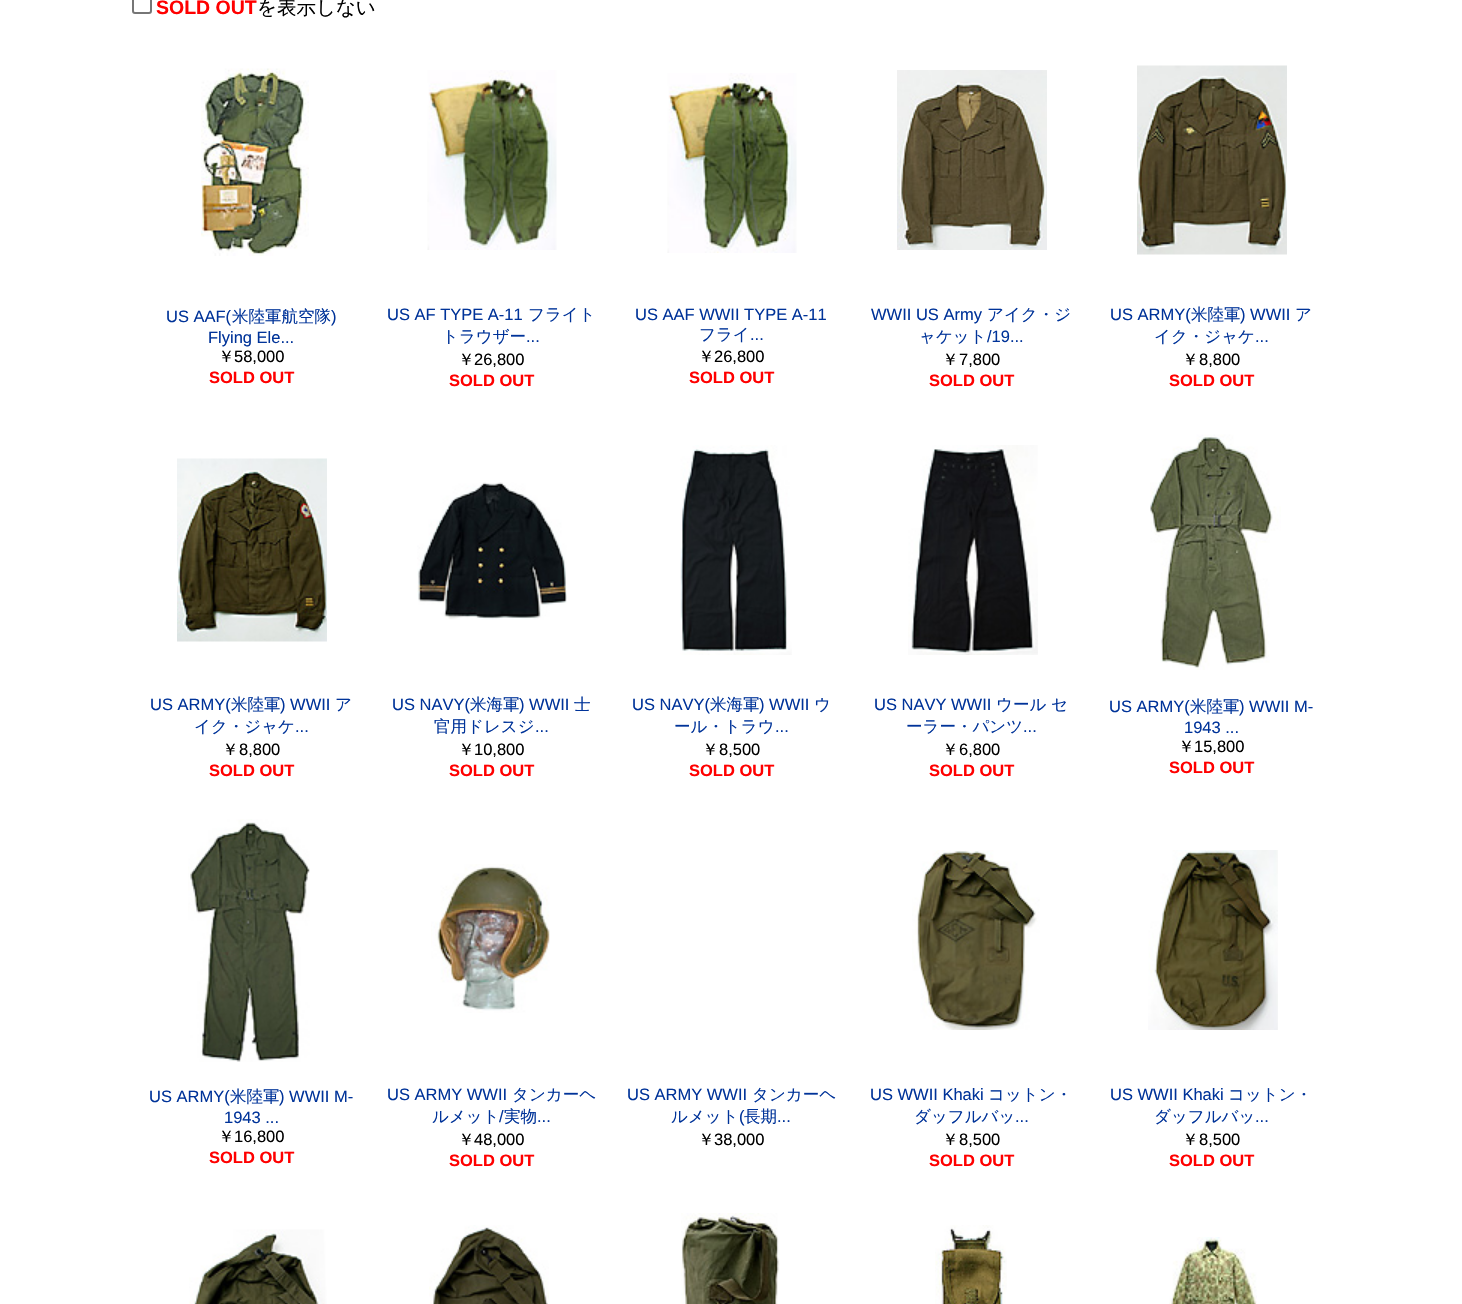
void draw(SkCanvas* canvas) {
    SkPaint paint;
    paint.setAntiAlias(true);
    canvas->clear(0xFFFFFFFF);
    paint.setStyle(SkPaint::kStroke_Style);
    paint.setStrokeWidth(2);
    paint.setColor(0xFF767676);
    canvas->drawRoundRect(SkRect::MakeXYWH(133, -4, 18, 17), 2, 2, paint);
    SkFont font1(fontMgr->matchFamilyStyle("Liberation Sans", SkFontStyle::Bold()), 19.5f);
    font1.setSubpixel(true);
    paint.setStyle(SkPaint::kFill_Style);
    paint.setColor(0xFFFF0000);
    canvas->drawString("SOLD OUT", 156, 14, font1, paint);
    SkFont font2(fontMgr->matchFamilyStyle("WenQuanYi Zen Hei", SkFontStyle(500, SkFontStyle::kNormal_Width, SkFontStyle::kUpright_Slant)), 19.5f);
    font2.setSubpixel(true);
    paint.setColor(0xFF000000);
    canvas->drawString("を表示しない", 257, 14, font2, paint);
    canvas->drawImageRect(SkImages::DeferredFromEncodedData(SkData::MakeFromFileName("img1.png")), SkRect::MakeXYWH(201, 68, 108, 188), SkSamplingOptions());
    SkFont font3(fontMgr->matchFamilyStyle("Liberation Sans", SkFontStyle::Normal()), 16.5f);
    font3.setSubpixel(true);
    paint.setColor(0xFF003399);
    canvas->drawString("US AAF(", 166, 322, font3, paint);
    SkFont font4(fontMgr->matchFamilyStyle("WenQuanYi Zen Hei", SkFontStyle(500, SkFontStyle::kNormal_Width, SkFontStyle::kUpright_Slant)), 16.5f);
    font4.setSubpixel(true);
    canvas->drawString("米陸軍航空隊", 232, 322, font4, paint);
    canvas->drawString(")", 331, 322, font3, paint);
    canvas->drawString("Flying Ele...", 208, 343, font3, paint);
    paint.setColor(0xFF000000);
    canvas->drawString("￥", 218, 362, font4, paint);
    canvas->drawString("58,000", 234, 362, font3, paint);
    SkFont font5(fontMgr->matchFamilyStyle("Liberation Sans", SkFontStyle::Bold()), 16.5f);
    font5.setSubpixel(true);
    paint.setColor(0xFFFF0000);
    canvas->drawString("SOLD OUT", 209, 383, font5, paint);
    canvas->drawImageRect(SkImages::DeferredFromEncodedData(SkData::MakeFromFileName("img2.png")), SkRect::MakeXYWH(427, 70, 130, 180), SkSamplingOptions());
    paint.setColor(0xFF003399);
    canvas->drawString("US AF TYPE A-11", 387, 320, font3, paint);
    canvas->drawString("フライト", 528, 320, font4, paint);
    canvas->drawString("トラウザー", 442, 342, font4, paint);
    canvas->drawString("...", 526, 342, font3, paint);
    paint.setColor(0xFF000000);
    canvas->drawString("￥", 458, 365, font4, paint);
    canvas->drawString("26,800", 474, 365, font3, paint);
    paint.setColor(0xFFFF0000);
    canvas->drawString("SOLD OUT", 449, 386, font5, paint);
    canvas->drawImageRect(SkImages::DeferredFromEncodedData(SkData::MakeFromFileName("img3.png")), SkRect::MakeXYWH(667, 73, 130, 180), SkSamplingOptions());
    paint.setColor(0xFF003399);
    canvas->drawString("US AAF WWII TYPE A-11", 635, 320, font3, paint);
    canvas->drawString("フライ", 699, 340, font4, paint);
    canvas->drawString("...", 750, 340, font3, paint);
    paint.setColor(0xFF000000);
    canvas->drawString("￥", 698, 362, font4, paint);
    canvas->drawString("26,800", 714, 362, font3, paint);
    paint.setColor(0xFFFF0000);
    canvas->drawString("SOLD OUT", 689, 383, font5, paint);
    canvas->drawImageRect(SkImages::DeferredFromEncodedData(SkData::MakeFromFileName("img4.png")), SkRect::MakeXYWH(897, 70, 150, 180), SkSamplingOptions());
    paint.setColor(0xFF003399);
    canvas->drawString("WWII US Army", 871, 320, font3, paint);
    canvas->drawString("アイク・ジ", 987, 320, font4, paint);
    canvas->drawString("ャケット", 919, 342, font4, paint);
    canvas->drawString("/19...", 987, 342, font3, paint);
    paint.setColor(0xFF000000);
    canvas->drawString("￥", 942, 365, font4, paint);
    canvas->drawString("7,800", 959, 365, font3, paint);
    paint.setColor(0xFFFF0000);
    canvas->drawString("SOLD OUT", 929, 386, font5, paint);
    canvas->drawImageRect(SkImages::DeferredFromEncodedData(SkData::MakeFromFileName("img5.png")), SkRect::MakeXYWH(1137, 65, 150, 190), SkSamplingOptions());
    paint.setColor(0xFF003399);
    canvas->drawString("US ARMY(", 1110, 320, font3, paint);
    canvas->drawString("米陸軍", 1191, 320, font4, paint);
    canvas->drawString(") WWII", 1240, 320, font3, paint);
    canvas->drawString("ア", 1295, 320, font4, paint);
    canvas->drawString("イク・ジャケ", 1154, 342, font4, paint);
    canvas->drawString("...", 1255, 342, font3, paint);
    paint.setColor(0xFF000000);
    canvas->drawString("￥", 1182, 365, font4, paint);
    canvas->drawString("8,800", 1199, 365, font3, paint);
    paint.setColor(0xFFFF0000);
    canvas->drawString("SOLD OUT", 1169, 386, font5, paint);
    canvas->drawImageRect(SkImages::DeferredFromEncodedData(SkData::MakeFromFileName("img6.png")), SkRect::MakeXYWH(177, 458, 150, 184), SkSamplingOptions());
    paint.setColor(0xFF003399);
    canvas->drawString("US ARMY(", 150, 710, font3, paint);
    canvas->drawString("米陸軍", 231, 710, font4, paint);
    canvas->drawString(") WWII", 280, 710, font3, paint);
    canvas->drawString("ア", 335, 710, font4, paint);
    canvas->drawString("イク・ジャケ", 194, 732, font4, paint);
    canvas->drawString("...", 295, 732, font3, paint);
    paint.setColor(0xFF000000);
    canvas->drawString("￥", 222, 755, font4, paint);
    canvas->drawString("8,800", 239, 755, font3, paint);
    paint.setColor(0xFFFF0000);
    canvas->drawString("SOLD OUT", 209, 776, font5, paint);
    canvas->drawImageRect(SkImages::DeferredFromEncodedData(SkData::MakeFromFileName("img7.png")), SkRect::MakeXYWH(417, 482, 150, 138), SkSamplingOptions());
    paint.setColor(0xFF003399);
    canvas->drawString("US NAVY(", 392, 710, font3, paint);
    canvas->drawString("米海軍", 470, 710, font4, paint);
    canvas->drawString(") WWII", 519, 710, font3, paint);
    canvas->drawString("士", 574, 710, font4, paint);
    canvas->drawString("官用ドレスジ", 434, 732, font4, paint);
    canvas->drawString("...", 535, 732, font3, paint);
    paint.setColor(0xFF000000);
    canvas->drawString("￥", 458, 755, font4, paint);
    canvas->drawString("10,800", 474, 755, font3, paint);
    paint.setColor(0xFFFF0000);
    canvas->drawString("SOLD OUT", 449, 776, font5, paint);
    canvas->drawImageRect(SkImages::DeferredFromEncodedData(SkData::MakeFromFileName("img8.png")), SkRect::MakeXYWH(680, 445, 112, 210), SkSamplingOptions());
    paint.setColor(0xFF003399);
    canvas->drawString("US NAVY(", 632, 710, font3, paint);
    canvas->drawString("米海軍", 710, 710, font4, paint);
    canvas->drawString(") WWII", 759, 710, font3, paint);
    canvas->drawString("ウ", 814, 710, font4, paint);
    canvas->drawString("ール・トラウ", 674, 732, font4, paint);
    canvas->drawString("...", 775, 732, font3, paint);
    paint.setColor(0xFF000000);
    canvas->drawString("￥", 702, 755, font4, paint);
    canvas->drawString("8,500", 719, 755, font3, paint);
    paint.setColor(0xFFFF0000);
    canvas->drawString("SOLD OUT", 689, 776, font5, paint);
    canvas->drawImageRect(SkImages::DeferredFromEncodedData(SkData::MakeFromFileName("img9.png")), SkRect::MakeXYWH(908, 445, 130, 210), SkSamplingOptions());
    paint.setColor(0xFF003399);
    canvas->drawString("US NAVY WWII", 874, 710, font3, paint);
    canvas->drawString("ウール", 996, 710, font4, paint);
    canvas->drawString("セ", 1051, 710, font4, paint);
    canvas->drawString("ーラー・パンツ", 906, 732, font4, paint);
    canvas->drawString("...", 1023, 732, font3, paint);
    paint.setColor(0xFF000000);
    canvas->drawString("￥", 942, 755, font4, paint);
    canvas->drawString("6,800", 959, 755, font3, paint);
    paint.setColor(0xFFFF0000);
    canvas->drawString("SOLD OUT", 929, 776, font5, paint);
    canvas->drawImageRect(SkImages::DeferredFromEncodedData(SkData::MakeFromFileName("img10.png")), SkRect::MakeXYWH(1150, 434, 131, 236), SkSamplingOptions());
    paint.setColor(0xFF003399);
    canvas->drawString("US ARMY(", 1109, 712, font3, paint);
    canvas->drawString("米陸軍", 1190, 712, font4, paint);
    canvas->drawString(") WWII M-", 1239, 712, font3, paint);
    canvas->drawString("1943 ...", 1184, 733, font3, paint);
    paint.setColor(0xFF000000);
    canvas->drawString("￥", 1178, 752, font4, paint);
    canvas->drawString("15,800", 1194, 752, font3, paint);
    paint.setColor(0xFFFF0000);
    canvas->drawString("SOLD OUT", 1169, 773, font5, paint);
    canvas->drawImageRect(SkImages::DeferredFromEncodedData(SkData::MakeFromFileName("img11.png")), SkRect::MakeXYWH(188, 819, 122, 243), SkSamplingOptions());
    paint.setColor(0xFF003399);
    canvas->drawString("US ARMY(", 149, 1102, font3, paint);
    canvas->drawString("米陸軍", 230, 1102, font4, paint);
    canvas->drawString(") WWII M-", 279, 1102, font3, paint);
    canvas->drawString("1943 ...", 224, 1123, font3, paint);
    paint.setColor(0xFF000000);
    canvas->drawString("￥", 218, 1142, font4, paint);
    canvas->drawString("16,800", 234, 1142, font3, paint);
    paint.setColor(0xFFFF0000);
    canvas->drawString("SOLD OUT", 209, 1163, font5, paint);
    canvas->drawImageRect(SkImages::DeferredFromEncodedData(SkData::MakeFromFileName("img12.png")), SkRect::MakeXYWH(431, 864, 119, 149), SkSamplingOptions());
    paint.setColor(0xFF003399);
    canvas->drawString("US ARMY WWII", 387, 1100, font3, paint);
    canvas->drawString("タンカーヘ", 512, 1100, font4, paint);
    canvas->drawString("ルメット", 432, 1122, font4, paint);
    canvas->drawString("/", 499, 1122, font3, paint);
    canvas->drawString("実物", 504, 1122, font4, paint);
    canvas->drawString("...", 537, 1122, font3, paint);
    paint.setColor(0xFF000000);
    canvas->drawString("￥", 458, 1145, font4, paint);
    canvas->drawString("48,000", 474, 1145, font3, paint);
    paint.setColor(0xFFFF0000);
    canvas->drawString("SOLD OUT", 449, 1166, font5, paint);
    paint.setColor(0xFF003399);
    canvas->drawString("US ARMY WWII", 627, 1100, font3, paint);
    canvas->drawString("タンカーヘ", 752, 1100, font4, paint);
    canvas->drawString("ルメット", 671, 1122, font4, paint);
    canvas->drawString("(", 739, 1122, font3, paint);
    canvas->drawString("長期", 744, 1122, font4, paint);
    canvas->drawString("...", 777, 1122, font3, paint);
    paint.setColor(0xFF000000);
    canvas->drawString("￥", 698, 1145, font4, paint);
    canvas->drawString("38,000", 714, 1145, font3, paint);
    canvas->drawImageRect(SkImages::DeferredFromEncodedData(SkData::MakeFromFileName("img13.png")), SkRect::MakeXYWH(912, 850, 128, 180), SkSamplingOptions());
    paint.setColor(0xFF003399);
    canvas->drawString("US WWII Khaki", 870, 1100, font3, paint);
    canvas->drawString("コットン・", 988, 1100, font4, paint);
    canvas->drawString("ダッフルバッ", 914, 1122, font4, paint);
    canvas->drawString("...", 1015, 1122, font3, paint);
    paint.setColor(0xFF000000);
    canvas->drawString("￥", 942, 1145, font4, paint);
    canvas->drawString("8,500", 959, 1145, font3, paint);
    paint.setColor(0xFFFF0000);
    canvas->drawString("SOLD OUT", 929, 1166, font5, paint);
    canvas->drawImageRect(SkImages::DeferredFromEncodedData(SkData::MakeFromFileName("img14.png")), SkRect::MakeXYWH(1148, 850, 130, 180), SkSamplingOptions());
    paint.setColor(0xFF003399);
    canvas->drawString("US WWII Khaki", 1110, 1100, font3, paint);
    canvas->drawString("コットン・", 1228, 1100, font4, paint);
    canvas->drawString("ダッフルバッ", 1154, 1122, font4, paint);
    canvas->drawString("...", 1255, 1122, font3, paint);
    paint.setColor(0xFF000000);
    canvas->drawString("￥", 1182, 1145, font4, paint);
    canvas->drawString("8,500", 1199, 1145, font3, paint);
    paint.setColor(0xFFFF0000);
    canvas->drawString("SOLD OUT", 1169, 1166, font5, paint);
    canvas->drawImageRect(SkImages::DeferredFromEncodedData(SkData::MakeFromFileName("img15.png")), SkRect::MakeXYWH(189, 1229, 138, 75), SkSamplingOptions());
    canvas->drawImageRect(SkImages::DeferredFromEncodedData(SkData::MakeFromFileName("img16.png")), SkRect::MakeXYWH(429, 1225, 120, 79), SkSamplingOptions());
    canvas->drawImageRect(SkImages::DeferredFromEncodedData(SkData::MakeFromFileName("img17.png")), SkRect::MakeXYWH(681, 1213, 99, 91), SkSamplingOptions());
    canvas->drawImageRect(SkImages::DeferredFromEncodedData(SkData::MakeFromFileName("img18.png")), SkRect::MakeXYWH(935, 1225, 72, 79), SkSamplingOptions());
    canvas->drawImageRect(SkImages::DeferredFromEncodedData(SkData::MakeFromFileName("img19.png")), SkRect::MakeXYWH(1169, 1237, 88, 67), SkSamplingOptions());
}
